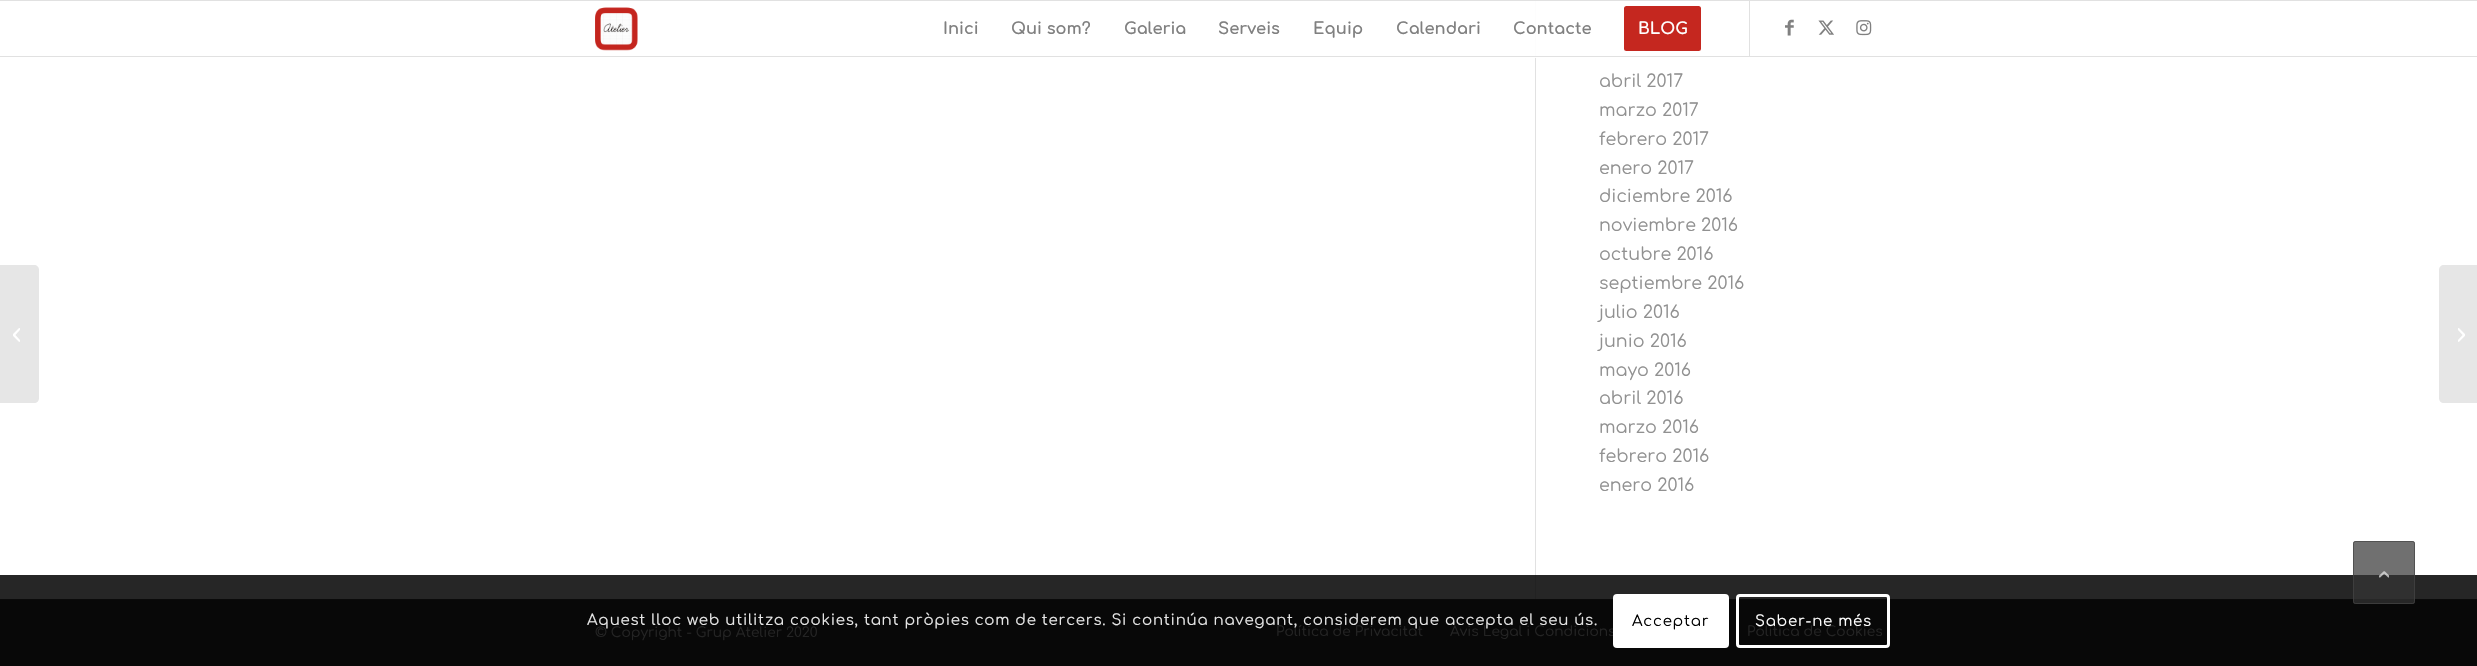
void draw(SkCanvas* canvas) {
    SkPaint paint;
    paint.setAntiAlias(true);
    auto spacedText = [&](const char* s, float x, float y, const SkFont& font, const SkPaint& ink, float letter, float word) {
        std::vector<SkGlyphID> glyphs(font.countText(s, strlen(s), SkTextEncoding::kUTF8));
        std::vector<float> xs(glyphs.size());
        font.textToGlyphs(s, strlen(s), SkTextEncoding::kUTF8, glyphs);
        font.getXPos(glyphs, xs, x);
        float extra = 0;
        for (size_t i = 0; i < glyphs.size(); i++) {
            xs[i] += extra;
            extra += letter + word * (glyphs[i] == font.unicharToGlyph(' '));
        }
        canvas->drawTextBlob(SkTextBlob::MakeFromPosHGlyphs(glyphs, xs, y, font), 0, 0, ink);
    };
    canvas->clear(0xFFFFFFFF);
    paint.setColor(0xFF262626);
    canvas->drawRect(SkRect::MakeXYWH(0, 575, 2477, 24), paint);
    paint.setColor(0xFFE1E1E1);
    canvas->drawRect(SkRect::MakeXYWH(1535, 0, 1, 575), paint);
    paint.setColor(0xF2FFFFFF);
    canvas->drawRect(SkRect::MakeXYWH(1535, 1, 1, 57), paint);
    paint.setColor(0xFFE1E1E1);
    canvas->drawRect(SkRect::MakeXYWH(0, 0, 2477, 1), paint);
    canvas->drawRect(SkRect::MakeXYWH(0, 56, 2477, 1), paint);
    canvas->drawImageRect(SkImages::DeferredFromEncodedData(SkData::MakeFromFileName("img1.png")), SkRect::MakeXYWH(595, 7, 43, 44), SkSamplingOptions());
    canvas->drawRect(SkRect::MakeXYWH(1749, 1, 1, 55), paint);
    SkFont font1(fontMgr->matchFamilyStyle("Comfortaa", SkFontStyle::Bold()), 16.25f);
    font1.setSubpixel(true);
    paint.setColor(0xFF808080);
    canvas->drawString("Inici", 943, 34, font1, paint);
    canvas->drawString("Qui som?", 1011, 34, font1, paint);
    canvas->drawString("Galeria", 1124, 34, font1, paint);
    canvas->drawString("Serveis", 1218, 34, font1, paint);
    canvas->drawString("Equip", 1313, 34, font1, paint);
    canvas->drawString("Calendari", 1396, 34, font1, paint);
    canvas->drawString("Contacte", 1513, 34, font1, paint);
    paint.setColor(0xFFC5271F);
    canvas->drawRoundRect(SkRect::MakeXYWH(1625.5f, 7.5f, 74, 42), 1, 1, paint);
    paint.setStyle(SkPaint::kStroke_Style);
    paint.setStrokeWidth(3);
    canvas->drawRoundRect(SkRect::MakeXYWH(1625.5f, 7.5f, 74, 42), 1, 1, paint);
    paint.setStyle(SkPaint::kFill_Style);
    paint.setColor(0xFFFFFFFF);
    canvas->drawString("BLOG", 1638, 34, font1, paint);
    canvas->drawImageRect(SkImages::DeferredFromEncodedData(SkData::MakeFromFileName("img2.png")), SkRect::MakeXYWH(1785, 19, 9, 17), SkSamplingOptions());
    canvas->drawImageRect(SkImages::DeferredFromEncodedData(SkData::MakeFromFileName("img3.png")), SkRect::MakeXYWH(1818, 20, 16, 15), SkSamplingOptions());
    canvas->drawImageRect(SkImages::DeferredFromEncodedData(SkData::MakeFromFileName("img4.png")), SkRect::MakeXYWH(1856, 20, 16, 16), SkSamplingOptions());
    paint.setColor(0xFFE6E6E6);
    canvas->drawPath(SkPathBuilder().moveTo(0, 265).lineTo(34, 265).cubicTo(37, 265, 39, 267, 39, 270).lineTo(39, 398).cubicTo(39, 401, 37, 403, 34, 403).lineTo(0, 403).close().detach(), paint);
    canvas->drawImageRect(SkImages::DeferredFromEncodedData(SkData::MakeFromFileName("img5.png")), SkRect::MakeXYWH(13, 328, 7, 14), SkSamplingOptions());
    paint.setColor(0xFF222222);
    canvas->drawRect(SkRect::MakeXYWH(1535, 575, 1, 25), paint);
    SkFont font2(fontMgr->matchFamilyStyle("Comfortaa", SkFontStyle::Normal()), 17.5f);
    font2.setSubpixel(true);
    paint.setColor(0xFF919191);
    canvas->drawString("abril 2017", 1599, 87, font2, paint);
    canvas->drawString("marzo 2017", 1599, 116, font2, paint);
    canvas->drawString("febrero 2017", 1599, 145, font2, paint);
    canvas->drawString("enero 2017", 1599, 174, font2, paint);
    canvas->drawString("diciembre 2016", 1599, 202, font2, paint);
    canvas->drawString("noviembre 2016", 1599, 231, font2, paint);
    canvas->drawString("octubre 2016", 1599, 260, font2, paint);
    canvas->drawString("septiembre 2016", 1599, 289, font2, paint);
    canvas->drawString("julio 2016", 1599, 318, font2, paint);
    canvas->drawString("junio 2016", 1599, 347, font2, paint);
    canvas->drawString("mayo 2016", 1599, 376, font2, paint);
    canvas->drawString("abril 2016", 1599, 404, font2, paint);
    canvas->drawString("marzo 2016", 1599, 433, font2, paint);
    canvas->drawString("febrero 2016", 1599, 462, font2, paint);
    canvas->drawString("enero 2016", 1599, 491, font2, paint);
    paint.setColor(0xFF080808);
    canvas->drawRect(SkRect::MakeXYWH(0, 600, 2477, 66), paint);
    paint.setColor(0xFF0A0A0A);
    canvas->drawRect(SkRect::MakeXYWH(0, 599, 2477, 1), paint);
    SkFont font3(fontMgr->matchFamilyStyle("Comfortaa", SkFontStyle::Normal()), 13.75f);
    font3.setSubpixel(true);
    paint.setColor(0xFF242424);
    canvas->drawString("© Copyright - Grup Atelier 2020", 595, 637, font3, paint);
    canvas->drawString("Política de Privacitat", 1276, 636, font3, paint);
    canvas->drawString("Avis Legal i Condicions", 1450, 636, font3, paint);
    canvas->drawString("Política de Cookies", 1747, 636, font3, paint);
    paint.setColor(0xFFE6E6E6);
    canvas->drawPath(SkPathBuilder().moveTo(2444, 265).lineTo(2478, 265).lineTo(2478, 403).lineTo(2444, 403).cubicTo(2441, 403, 2439, 401, 2439, 398).lineTo(2439, 270).cubicTo(2439, 267, 2441, 265, 2444, 265).close().detach(), paint);
    canvas->drawImageRect(SkImages::DeferredFromEncodedData(SkData::MakeFromFileName("img6.png")), SkRect::MakeXYWH(2458, 328, 7, 14), SkSamplingOptions());
    paint.setColor(0xB3333333);
    canvas->drawRoundRect(SkRect::MakeXYWH(2353, 541, 62, 63), 2.5f, 2.5f, paint);
    paint.setStyle(SkPaint::kStroke_Style);
    paint.setStrokeWidth(1);
    paint.setColor(0xB3444444);
    canvas->drawRoundRect(SkRect::MakeXYWH(2353.5f, 541.5f, 61, 62), 2, 2, paint);
    canvas->drawImageRect(SkImages::DeferredFromEncodedData(SkData::MakeFromFileName("img7.png")), SkRect::MakeXYWH(2379, 571, 10, 7), SkSamplingOptions());
    SkFont font4(fontMgr->matchFamilyStyle("Comfortaa", SkFontStyle::Normal()), 15);
    font4.setSubpixel(true);
    paint.setStyle(SkPaint::kFill_Style);
    paint.setColor(0xFFE6E6E6);
    spacedText("Aquest lloc web utilitza cookies, tant pròpies com de tercers. Si continúa navegant, considerem que accepta el seu ús.", 587, 625, font4, paint, 0.75f, 0);
    paint.setColor(0xFFFFFFFF);
    canvas->drawRoundRect(SkRect::MakeXYWH(1613, 594, 116, 54), 4, 4, paint);
    paint.setColor(0xFF000000);
    spacedText("Acceptar", 1632, 626, font4, paint, 0.75f, 0);
    paint.setStyle(SkPaint::kStroke_Style);
    paint.setStrokeWidth(3);
    paint.setColor(0xFFFFFFFF);
    canvas->drawRoundRect(SkRect::MakeXYWH(1737.5f, 595.5f, 151, 51), 2.5f, 2.5f, paint);
    paint.setStyle(SkPaint::kFill_Style);
    spacedText("Saber-ne més", 1755, 626, font4, paint, 0.75f, 0);
}
